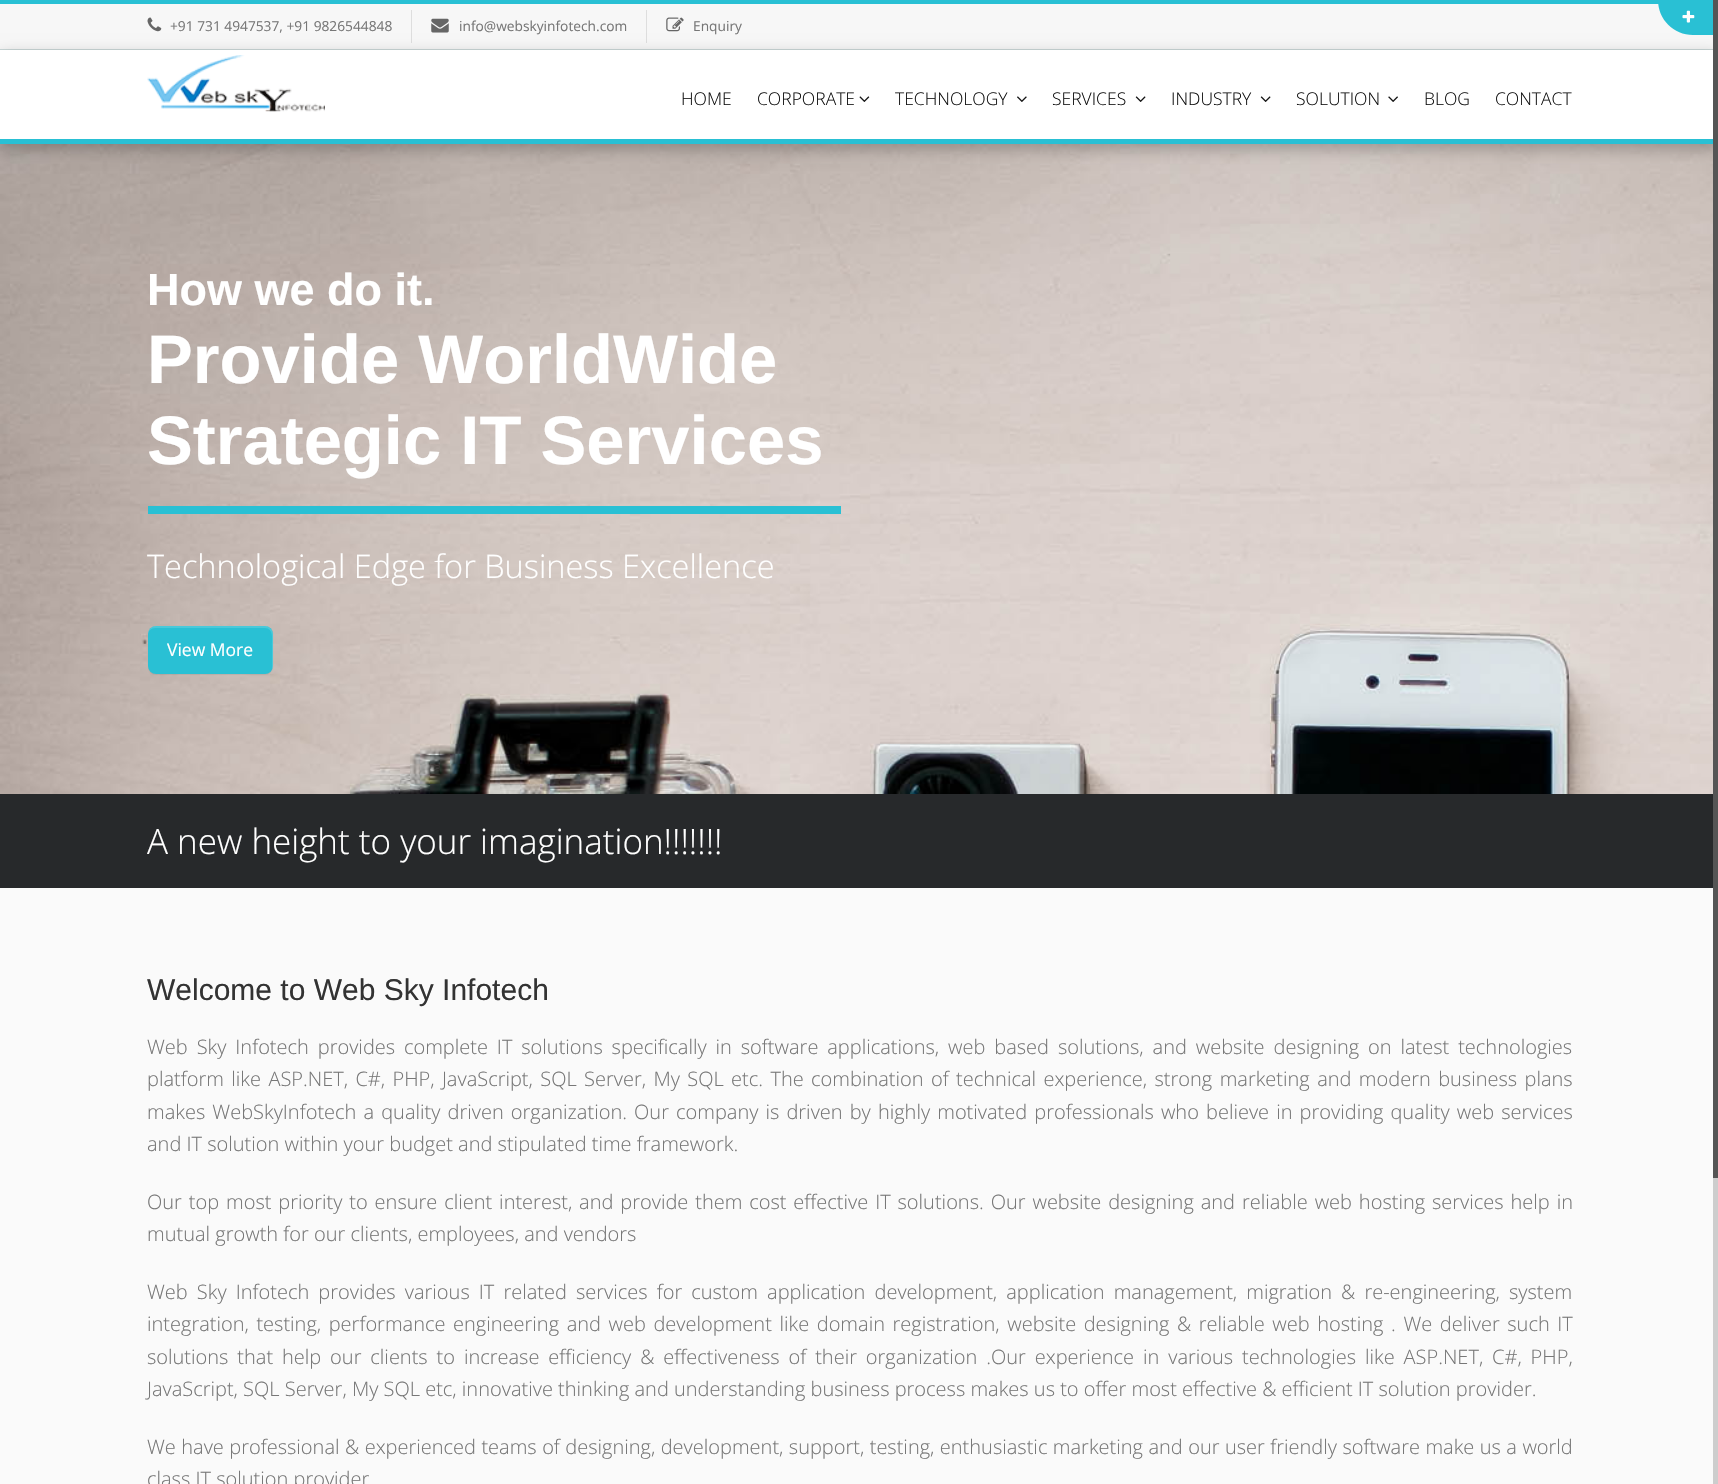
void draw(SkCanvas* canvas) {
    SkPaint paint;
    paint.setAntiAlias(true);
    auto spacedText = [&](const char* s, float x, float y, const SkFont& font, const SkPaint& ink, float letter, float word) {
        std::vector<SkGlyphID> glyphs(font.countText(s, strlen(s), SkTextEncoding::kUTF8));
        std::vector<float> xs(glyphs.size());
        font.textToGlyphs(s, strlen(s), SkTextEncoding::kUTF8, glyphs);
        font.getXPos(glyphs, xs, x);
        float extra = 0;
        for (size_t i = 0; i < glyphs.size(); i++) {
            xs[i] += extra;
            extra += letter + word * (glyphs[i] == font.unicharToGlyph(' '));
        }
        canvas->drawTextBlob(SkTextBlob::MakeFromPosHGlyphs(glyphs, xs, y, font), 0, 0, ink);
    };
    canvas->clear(0xFFFAFAFA);
    paint.setColor(0xFF29C0D4);
    canvas->drawRect(SkRect::MakeXYWH(0, 0, 1659, 4), paint);
    paint.setColor(0xFFF7F7F7);
    canvas->drawRect(SkRect::MakeXYWH(0, 4, 1713, 45), paint);
    paint.setColor(0xFF29C0D4);
    canvas->drawPath(SkPathBuilder().moveTo(1658, 0).lineTo(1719, 0).lineTo(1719, 35).lineTo(1693, 35).cubicTo(1673.5f, 35, 1658, 19.5f, 1658, 0).close().detach(), paint);
    canvas->drawImageRect(SkImages::DeferredFromEncodedData(SkData::MakeFromFileName("img1.png")), SkRect::MakeXYWH(1682, 10, 13, 13), SkSamplingOptions());
    paint.setColor(0xFFCBD8D8);
    canvas->drawRect(SkRect::MakeXYWH(0, 49, 1718, 1), paint);
    paint.setColor(0xFFDEDEDE);
    canvas->drawRect(SkRect::MakeXYWH(411, 10, 1, 33), paint);
    canvas->drawImageRect(SkImages::DeferredFromEncodedData(SkData::MakeFromFileName("img2.png")), SkRect::MakeXYWH(147, 17, 15, 15), SkSamplingOptions());
    SkFont font1(fontMgr->matchFamilyStyle("Open Sans", SkFontStyle::Normal()), 13.75f);
    font1.setSubpixel(true);
    paint.setColor(0xFF777777);
    canvas->drawString("+91 731 4947537, +91 9826544848", 170, 31, font1, paint);
    paint.setColor(0xFFDEDEDE);
    canvas->drawRect(SkRect::MakeXYWH(646, 10, 1, 33), paint);
    canvas->drawImageRect(SkImages::DeferredFromEncodedData(SkData::MakeFromFileName("img3.png")), SkRect::MakeXYWH(431, 18, 18, 15), SkSamplingOptions());
    paint.setColor(0xFF777777);
    canvas->drawString("info@webskyinfotech.com", 459, 31, font1, paint);
    canvas->drawImageRect(SkImages::DeferredFromEncodedData(SkData::MakeFromFileName("img4.png")), SkRect::MakeXYWH(666, 17, 18, 15), SkSamplingOptions());
    canvas->drawString("Enquiry", 693, 31, font1, paint);
    canvas->drawImageRect(SkImages::DeferredFromEncodedData(SkData::MakeFromFileName("img10.png")), SkRect::MakeXYWH(0, 144, 1713, 650), SkSamplingOptions());
    paint.setColor(0x40000000);
    paint.setMaskFilter(SkMaskFilter::MakeBlur(kNormal_SkBlurStyle, 7.5f));
    canvas->drawRect(SkRect::MakeXYWH(0, 55, 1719, 94), paint);
    paint.setMaskFilter(nullptr);
    paint.setColor(0xFFFFFFFF);
    canvas->drawRect(SkRect::MakeXYWH(0, 50, 1713, 89), paint);
    paint.setColor(0xFF29C0D4);
    canvas->drawRect(SkRect::MakeXYWH(0, 139, 1718, 5), paint);
    canvas->drawImageRect(SkImages::DeferredFromEncodedData(SkData::MakeFromFileName("img5.png")), SkRect::MakeXYWH(147, 55, 178, 57), SkSamplingOptions());
    SkFont font2(fontMgr->matchFamilyStyle("Open Sans", SkFontStyle(300, SkFontStyle::kNormal_Width, SkFontStyle::kUpright_Slant)), 17.5f);
    font2.setSubpixel(true);
    paint.setColor(0xFF131313);
    canvas->drawString("HOME", 681, 105, font2, paint);
    canvas->drawString("CORPORATE", 757, 105, font2, paint);
    canvas->drawImageRect(SkImages::DeferredFromEncodedData(SkData::MakeFromFileName("img6.png")), SkRect::MakeXYWH(859, 96, 11, 6), SkSamplingOptions());
    canvas->drawString("TECHNOLOGY", 895, 105, font2, paint);
    canvas->drawImageRect(SkImages::DeferredFromEncodedData(SkData::MakeFromFileName("img7.png")), SkRect::MakeXYWH(1017, 96, 10, 6), SkSamplingOptions());
    canvas->drawString("SERVICES", 1052, 105, font2, paint);
    canvas->drawImageRect(SkImages::DeferredFromEncodedData(SkData::MakeFromFileName("img8.png")), SkRect::MakeXYWH(1135, 96, 11, 6), SkSamplingOptions());
    canvas->drawString("INDUSTRY", 1171, 105, font2, paint);
    canvas->drawImageRect(SkImages::DeferredFromEncodedData(SkData::MakeFromFileName("img8.png")), SkRect::MakeXYWH(1260, 96, 11, 6), SkSamplingOptions());
    canvas->drawString("SOLUTION", 1296, 105, font2, paint);
    canvas->drawImageRect(SkImages::DeferredFromEncodedData(SkData::MakeFromFileName("img9.png")), SkRect::MakeXYWH(1388, 96, 10, 6), SkSamplingOptions());
    canvas->drawString("BLOG", 1424, 105, font2, paint);
    canvas->drawString("CONTACT", 1495, 105, font2, paint);
    SkFont font3(fontMgr->matchFamilyStyle("Liberation Sans", SkFontStyle::Bold()), 45);
    font3.setSubpixel(true);
    paint.setColor(0xFFFFFFFF);
    canvas->drawString("How we do it.", 147, 305, font3, paint);
    paint.setColor(0xFF29C0D4);
    canvas->drawRect(SkRect::MakeXYWH(148, 506, 693, 8), paint);
    SkFont font4(fontMgr->matchFamilyStyle("Liberation Sans", SkFontStyle::Bold()), 68.75f);
    font4.setSubpixel(true);
    paint.setColor(0xFFFFFFFF);
    canvas->drawString("Provide WorldWide", 147, 383, font4, paint);
    canvas->drawString("Strategic IT Services", 147, 464, font4, paint);
    SkFont font5(fontMgr->matchFamilyStyle("Open Sans", SkFontStyle(300, SkFontStyle::kNormal_Width, SkFontStyle::kUpright_Slant)), 32.5f);
    font5.setSubpixel(true);
    canvas->drawString("Technological Edge for Business Excellence", 147, 578, font5, paint);
    paint.setColor(0x12000000);
    paint.setMaskFilter(SkMaskFilter::MakeBlur(kNormal_SkBlurStyle, 0.5f));
    canvas->drawRoundRect(SkRect::MakeXYWH(148, 628, 125, 47), 8, 8, paint);
    paint.setMaskFilter(nullptr);
    paint.setColor(0xFF29C0D4);
    canvas->drawRoundRect(SkRect::MakeXYWH(148, 626, 125, 48), 8, 8, paint);
    paint.setColor(0x26FFFFFF);
    canvas->drawPath(SkPathBuilder().moveTo(155, 628).lineTo(265, 628).cubicTo(274, 628, 272, 640, 272, 646).lineTo(272, 671).cubicTo(272, 669, 273, 668, 273, 666).lineTo(273, 634).cubicTo(273, 630, 269, 626, 265, 626).lineTo(156, 626).cubicTo(152, 626, 148, 630, 148, 634).lineTo(148, 635).cubicTo(148, 631, 151, 628, 155, 628).close().detach(), paint);
    SkFont font6(fontMgr->matchFamilyStyle("Open Sans", SkFontStyle::Normal()), 17.5f);
    font6.setSubpixel(true);
    paint.setColor(0xFFFFFFFF);
    canvas->drawString("View More", 167, 656, font6, paint);
    paint.setColor(0xFF27292B);
    canvas->drawRect(SkRect::MakeXYWH(0, 794, 1713, 94), paint);
    SkFont font7(fontMgr->matchFamilyStyle("Open Sans", SkFontStyle(300, SkFontStyle::kNormal_Width, SkFontStyle::kUpright_Slant)), 35);
    font7.setSubpixel(true);
    paint.setColor(0xFFFFFFFF);
    canvas->drawString("A new height to your imagination!!!!!!!", 147, 854, font7, paint);
    SkFont font8(fontMgr->matchFamilyStyle("Liberation Sans", SkFontStyle::Normal()), 30);
    font8.setSubpixel(true);
    paint.setColor(0xFF333333);
    canvas->drawString("Welcome to Web Sky Infotech", 147, 1000, font8, paint);
    SkFont font9(fontMgr->matchFamilyStyle("Open Sans", SkFontStyle(300, SkFontStyle::kNormal_Width, SkFontStyle::kUpright_Slant)), 20);
    font9.setSubpixel(true);
    paint.setColor(0xFF777777);
    spacedText("Web Sky Infotech provides complete IT solutions specifically in software applications, web based solutions, and website designing on latest technologies", 147, 1054, font9, paint, 0, 3.7f);
    spacedText("platform like ASP.NET, C#, PHP, JavaScript, SQL Server, My SQL etc. The combination of technical experience, strong marketing and modern business plans", 147, 1086, font9, paint, 0, 2.2f);
    spacedText("makes WebSkyInfotech a quality driven organization. Our company is driven by highly motivated professionals who believe in providing quality web services", 147, 1119, font9, paint, 0, 1.9f);
    canvas->drawString("and IT solution within your budget and stipulated time framework.", 147, 1151, font9, paint);
    spacedText("Our top most priority to ensure client interest, and provide them cost effective IT solutions. Our website designing and reliable web hosting services help in", 147, 1209, font9, paint, 0, 1.7f);
    canvas->drawString("mutual growth for our clients, employees, and vendors", 147, 1241, font9, paint);
    spacedText("Web Sky Infotech provides various IT related services for custom application development, application management, migration & re-engineering, system", 147, 1299, font9, paint, 0, 3.9f);
    spacedText("integration, testing, performance engineering and web development like domain registration, website designing & reliable web hosting . We deliver such IT", 147, 1331, font9, paint, 0, 2.4f);
    spacedText("solutions that help our clients to increase efficiency & effectiveness of their organization .Our experience in various technologies like ASP.NET, C#, PHP,", 147, 1364, font9, paint, 0, 3.7f);
    canvas->drawString("JavaScript, SQL Server, My SQL etc, innovative thinking and understanding business process makes us to offer most effective & efficient IT solution provider.", 147, 1396, font9, paint);
    spacedText("We have professional & experienced teams of designing, development, support, testing, enthusiastic marketing and our user friendly software make us a world", 147, 1454, font9, paint, 0, 0.25f);
    canvas->drawString("class IT solution provider", 147, 1486, font9, paint);
    paint.setColor(0xFFCDCDCD);
    canvas->drawRect(SkRect::MakeXYWH(1713, 1178, 5, 306), paint);
    paint.setColor(0xFF555555);
    canvas->drawRect(SkRect::MakeXYWH(1713, 0, 5, 1178), paint);
}
